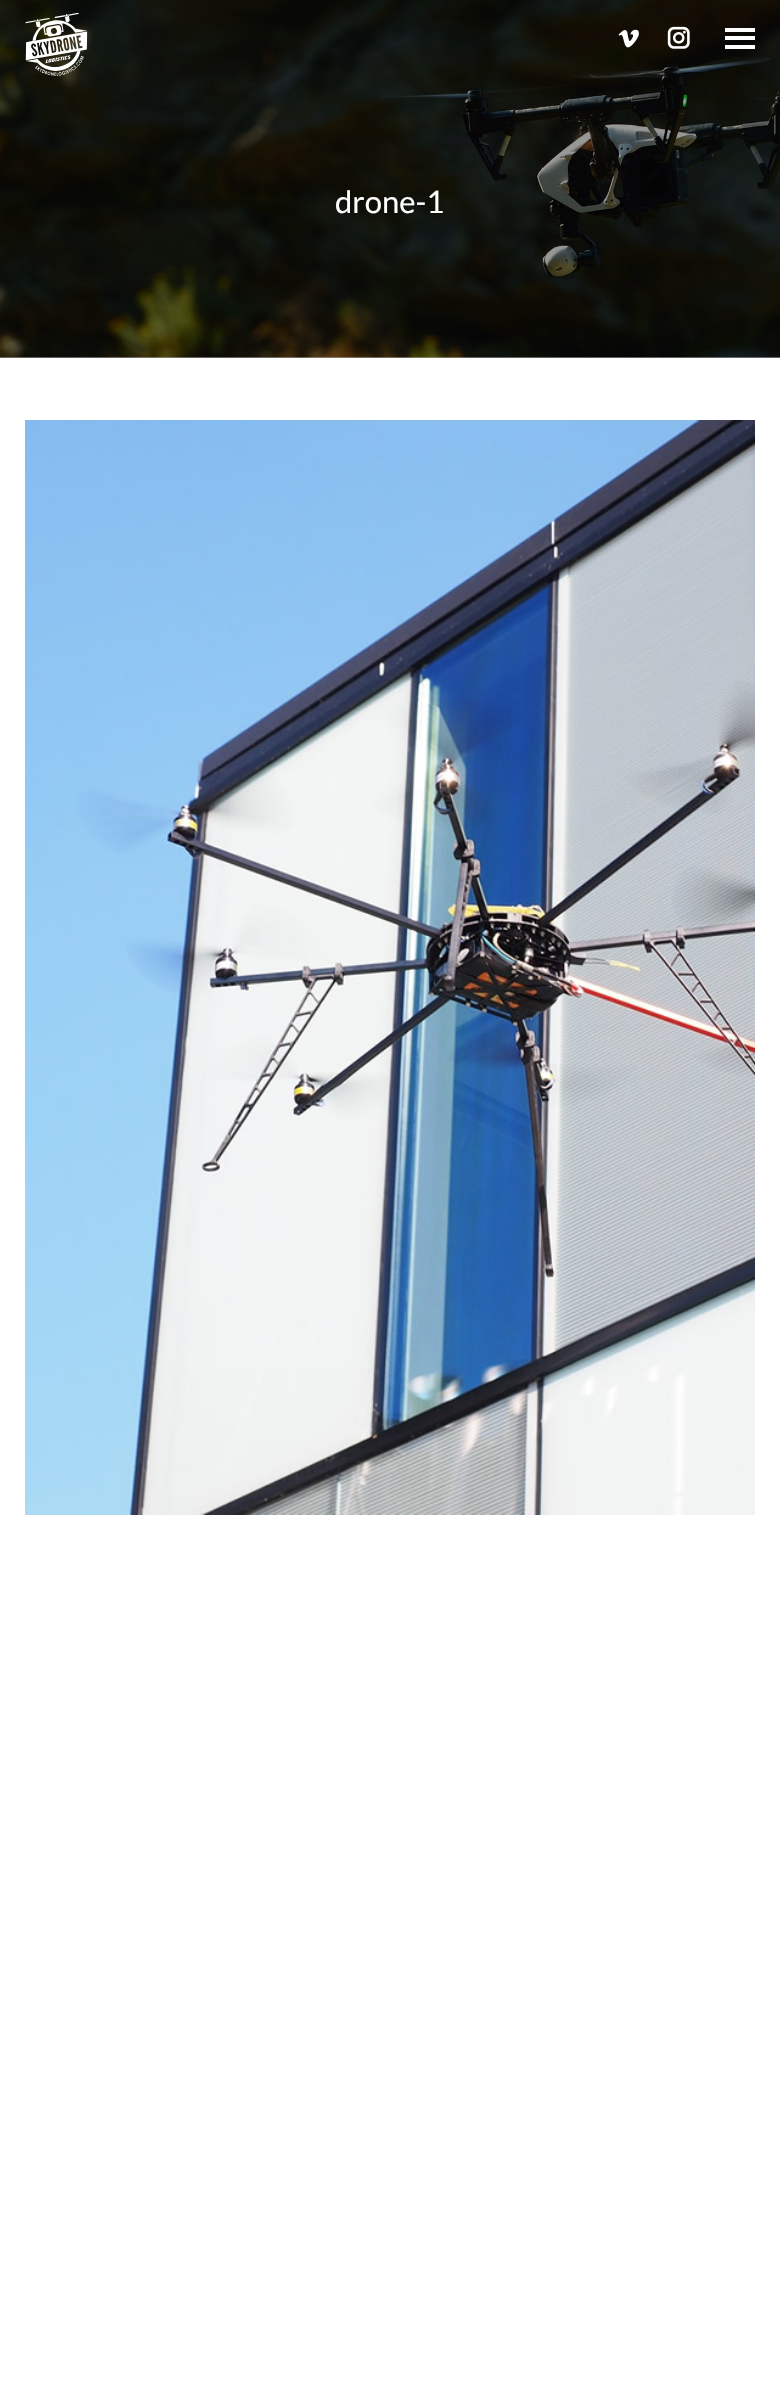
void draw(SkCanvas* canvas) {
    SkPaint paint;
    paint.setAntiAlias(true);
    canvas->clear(0xFFFFFFFF);
    paint.setColor(0xFFB3B3B3);
    canvas->drawRect(SkRect::MakeXYWH(0, 357, 780, 1), paint);
    canvas->drawImageRect(SkImages::DeferredFromEncodedData(SkData::MakeFromFileName("img4.png")), SkRect::MakeXYWH(0, 0, 780, 358), SkSamplingOptions());
    canvas->drawImageRect(SkImages::DeferredFromEncodedData(SkData::MakeFromFileName("img1.png")), SkRect::MakeXYWH(25, 13, 63, 63), SkSamplingOptions());
    canvas->drawImageRect(SkImages::DeferredFromEncodedData(SkData::MakeFromFileName("img2.png")), SkRect::MakeXYWH(618, 29, 21, 19), SkSamplingOptions());
    canvas->drawImageRect(SkImages::DeferredFromEncodedData(SkData::MakeFromFileName("img3.png")), SkRect::MakeXYWH(667, 26, 23, 23), SkSamplingOptions());
    paint.setColor(0xFFFFFFFF);
    canvas->drawRect(SkRect::MakeXYWH(725, 28, 30, 4), paint);
    canvas->drawRect(SkRect::MakeXYWH(725, 36, 30, 4), paint);
    canvas->drawRect(SkRect::MakeXYWH(725, 45, 30, 4), paint);
    SkFont font1(fontMgr->matchFamilyStyle("Lato", SkFontStyle::Normal()), 31);
    font1.setSubpixel(true);
    canvas->drawString("drone-1", 335, 213, font1, paint);
    canvas->drawImageRect(SkImages::DeferredFromEncodedData(SkData::MakeFromFileName("img5.png")), SkRect::MakeXYWH(25, 420, 730, 1095), SkSamplingOptions());
}
